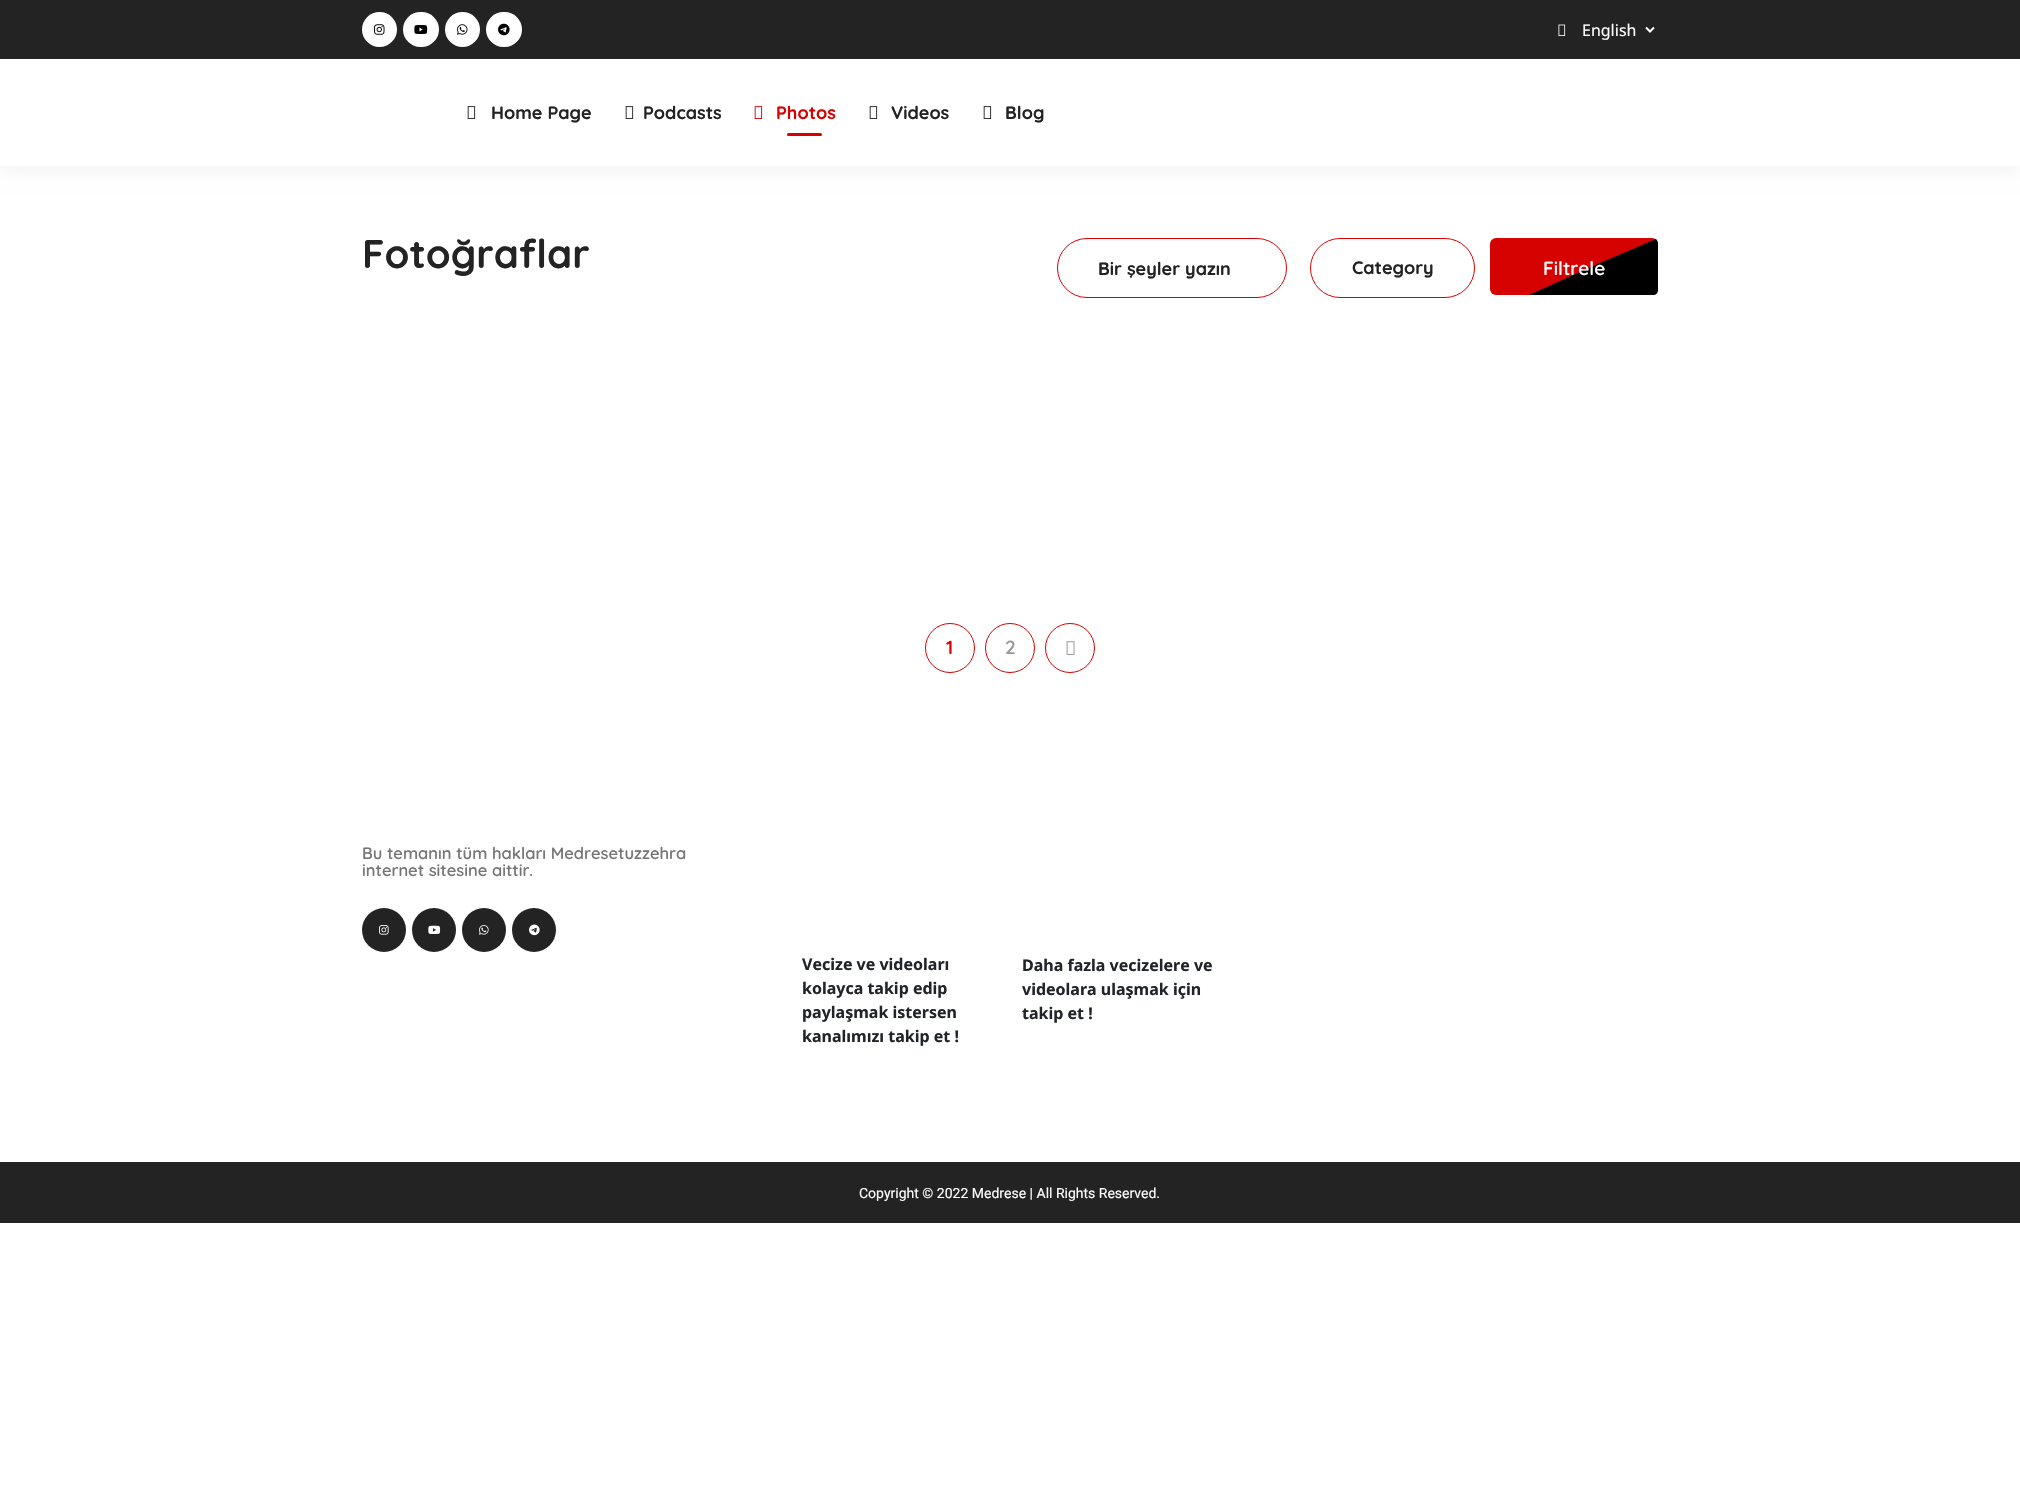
void draw(SkCanvas* canvas) {
    SkPaint paint;
    paint.setAntiAlias(true);
    canvas->clear(0xFFFFFFFF);
    paint.setColor(0xFF232323);
    canvas->drawRect(SkRect::MakeXYWH(0, 0, 2020, 59), paint);
    paint.setColor(0x0D000000);
    paint.setMaskFilter(SkMaskFilter::MakeBlur(kNormal_SkBlurStyle, 8.5f));
    canvas->drawRect(SkRect::MakeXYWH(0, 63, 2020, 107), paint);
    paint.setMaskFilter(nullptr);
    paint.setColor(0xFFFFFFFF);
    canvas->drawCircle(379.5f, 29.5f, 17.5f, paint);
    canvas->drawImageRect(SkImages::DeferredFromEncodedData(SkData::MakeFromFileName("img1.png")), SkRect::MakeXYWH(374, 24, 11, 11), SkSamplingOptions());
    canvas->drawRoundRect(SkRect::MakeXYWH(403, 12, 36, 35), 17.5f, 17.5f, paint);
    canvas->drawImageRect(SkImages::DeferredFromEncodedData(SkData::MakeFromFileName("img2.png")), SkRect::MakeXYWH(414, 25, 14, 9), SkSamplingOptions());
    canvas->drawCircle(462.5f, 29.5f, 17.5f, paint);
    canvas->drawImageRect(SkImages::DeferredFromEncodedData(SkData::MakeFromFileName("img3.png")), SkRect::MakeXYWH(457, 24, 11, 11), SkSamplingOptions());
    canvas->drawRoundRect(SkRect::MakeXYWH(486, 12, 36, 35), 17.5f, 17.5f, paint);
    canvas->drawImageRect(SkImages::DeferredFromEncodedData(SkData::MakeFromFileName("img4.png")), SkRect::MakeXYWH(498, 23, 12, 13), SkSamplingOptions());
    canvas->drawImageRect(SkImages::DeferredFromEncodedData(SkData::MakeFromFileName("img5.png")), SkRect::MakeXYWH(1558, 24, 8, 12), SkSamplingOptions());
    paint.setStyle(SkPaint::kStroke_Style);
    paint.setStrokeWidth(2);
    canvas->drawPath(SkPathBuilder().moveTo(1646, 27.5f).lineTo(1650, 31.5f).lineTo(1654, 27.5f).detach(), paint);
    SkFont font1(fontMgr->matchFamilyStyle("Noto Sans", SkFontStyle::Normal()), 16);
    font1.setSubpixel(true);
    paint.setStyle(SkPaint::kFill_Style);
    canvas->drawString("English", 1582, 36, font1, paint);
    canvas->drawRect(SkRect::MakeXYWH(0, 59, 2020, 107), paint);
    canvas->drawImageRect(SkImages::DeferredFromEncodedData(SkData::MakeFromFileName("img6.png")), SkRect::MakeXYWH(467, 106, 9, 13), SkSamplingOptions());
    SkFont font2(fontMgr->matchFamilyStyle("Quicksand", SkFontStyle::Bold()), 18);
    font2.setSubpixel(true);
    paint.setColor(0xFF232323);
    canvas->drawString("Home Page", 491, 119, font2, paint);
    canvas->drawImageRect(SkImages::DeferredFromEncodedData(SkData::MakeFromFileName("img6.png")), SkRect::MakeXYWH(625, 106, 9, 13), SkSamplingOptions());
    canvas->drawString("Podcasts", 643, 119, font2, paint);
    canvas->drawImageRect(SkImages::DeferredFromEncodedData(SkData::MakeFromFileName("img7.png")), SkRect::MakeXYWH(754, 106, 9, 13), SkSamplingOptions());
    paint.setColor(0xFFD60201);
    canvas->drawString("Photos", 776, 119, font2, paint);
    canvas->drawRoundRect(SkRect::MakeXYWH(787, 133, 35, 3), 1.5f, 1.5f, paint);
    canvas->drawImageRect(SkImages::DeferredFromEncodedData(SkData::MakeFromFileName("img6.png")), SkRect::MakeXYWH(869, 106, 9, 13), SkSamplingOptions());
    paint.setColor(0xFF232323);
    canvas->drawString("Videos", 891, 119, font2, paint);
    canvas->drawImageRect(SkImages::DeferredFromEncodedData(SkData::MakeFromFileName("img6.png")), SkRect::MakeXYWH(983, 106, 9, 13), SkSamplingOptions());
    canvas->drawString("Blog", 1005, 119, font2, paint);
    SkFont font3(fontMgr->matchFamilyStyle("Quicksand", SkFontStyle::Bold()), 40);
    font3.setSubpixel(true);
    canvas->drawString("Fotoğraflar", 362, 268, font3, paint);
    paint.setStyle(SkPaint::kStroke_Style);
    paint.setStrokeWidth(1);
    paint.setColor(0xFFD60201);
    canvas->drawRoundRect(SkRect::MakeXYWH(1057.5f, 238.5f, 229, 59), 29.5f, 29.5f, paint);
    paint.setStyle(SkPaint::kFill_Style);
    paint.setColor(0xFF232323);
    canvas->drawString("Bir şeyler yazın", 1098, 275, font2, paint);
    paint.setStyle(SkPaint::kStroke_Style);
    paint.setColor(0xFFD60201);
    canvas->drawRoundRect(SkRect::MakeXYWH(1310.5f, 238.5f, 164, 59), 29.5f, 29.5f, paint);
    paint.setStyle(SkPaint::kFill_Style);
    paint.setColor(0xFF232323);
    canvas->drawString("Category", 1352, 274, font2, paint);
    paint.setColor(0xFFD60201);
    canvas->drawRoundRect(SkRect::MakeXYWH(1490, 238, 168, 57), 6, 6, paint);
    paint.setColor(0xFF000000);
    canvas->drawPath(SkPathBuilder().moveTo(1593, 266).lineTo(1529, 295).lineTo(1653, 295).cubicTo(1656, 295, 1658, 293, 1658, 290).lineTo(1658, 244).cubicTo(1658, 242, 1657, 240, 1656, 239).close().detach(), paint);
    SkFont font4(fontMgr->matchFamilyStyle("Quicksand", SkFontStyle(600, SkFontStyle::kNormal_Width, SkFontStyle::kUpright_Slant)), 19);
    font4.setSubpixel(true);
    paint.setColor(0xFFFFFFFF);
    canvas->drawString("Filtrele", 1543, 275, font4, paint);
    paint.setStyle(SkPaint::kStroke_Style);
    paint.setColor(0xFFD60201);
    canvas->drawCircle(950, 648, 24.5f, paint);
    paint.setStyle(SkPaint::kFill_Style);
    canvas->drawString("1", 946, 654, font4, paint);
    paint.setStyle(SkPaint::kStroke_Style);
    canvas->drawCircle(1010, 648, 24.5f, paint);
    paint.setStyle(SkPaint::kFill_Style);
    paint.setColor(0xFF989898);
    canvas->drawString("2", 1005, 654, font4, paint);
    paint.setStyle(SkPaint::kStroke_Style);
    paint.setColor(0xFFD60201);
    canvas->drawCircle(1070, 648, 24.5f, paint);
    canvas->drawImageRect(SkImages::DeferredFromEncodedData(SkData::MakeFromFileName("img8.png")), SkRect::MakeXYWH(1066, 641, 9, 14), SkSamplingOptions());
    SkFont font5(fontMgr->matchFamilyStyle("Quicksand", SkFontStyle(600, SkFontStyle::kNormal_Width, SkFontStyle::kUpright_Slant)), 16.5f);
    font5.setSubpixel(true);
    paint.setStyle(SkPaint::kFill_Style);
    paint.setColor(0xFF767676);
    canvas->drawString("Bu temanın tüm hakları Medresetuzzehra", 362, 859, font5, paint);
    canvas->drawString("internet sitesine aittir.", 362, 876, font5, paint);
    paint.setColor(0xFF232323);
    canvas->drawCircle(384, 930, 22, paint);
    canvas->drawImageRect(SkImages::DeferredFromEncodedData(SkData::MakeFromFileName("img9.png")), SkRect::MakeXYWH(379, 925, 10, 10), SkSamplingOptions());
    canvas->drawCircle(434, 930, 22, paint);
    canvas->drawImageRect(SkImages::DeferredFromEncodedData(SkData::MakeFromFileName("img10.png")), SkRect::MakeXYWH(428, 925, 13, 9), SkSamplingOptions());
    canvas->drawCircle(484, 930, 22, paint);
    canvas->drawImageRect(SkImages::DeferredFromEncodedData(SkData::MakeFromFileName("img11.png")), SkRect::MakeXYWH(479, 925, 10, 10), SkSamplingOptions());
    canvas->drawCircle(534, 930, 22, paint);
    canvas->drawImageRect(SkImages::DeferredFromEncodedData(SkData::MakeFromFileName("img12.png")), SkRect::MakeXYWH(529, 924, 11, 12), SkSamplingOptions());
    SkFont font6(fontMgr->matchFamilyStyle("Noto Sans", SkFontStyle::Bold()), 16);
    font6.setSubpixel(true);
    paint.setColor(0xFF212529);
    canvas->drawString("Vecize ve videoları", 802, 970, font6, paint);
    canvas->drawString("kolayca takip edip", 802, 994, font6, paint);
    canvas->drawString("paylaşmak istersen", 802, 1018, font6, paint);
    canvas->drawString("kanalımızı takip et !", 802, 1042, font6, paint);
    canvas->drawString("Daha fazla vecizelere ve", 1022, 971, font6, paint);
    canvas->drawString("videolara ulaşmak için", 1022, 995, font6, paint);
    canvas->drawString("takip et !", 1022, 1019, font6, paint);
    paint.setColor(0xFF232323);
    canvas->drawRect(SkRect::MakeXYWH(0, 1162, 2020, 61), paint);
    SkFont font7(fontMgr->matchFamilyStyle("Roboto", SkFontStyle::Normal()), 14);
    font7.setSubpixel(true);
    paint.setColor(0xFFFFFFFF);
    canvas->drawString("Copyright © 2022 Medrese | All Rights Reserved.", 859, 1198, font7, paint);
}
